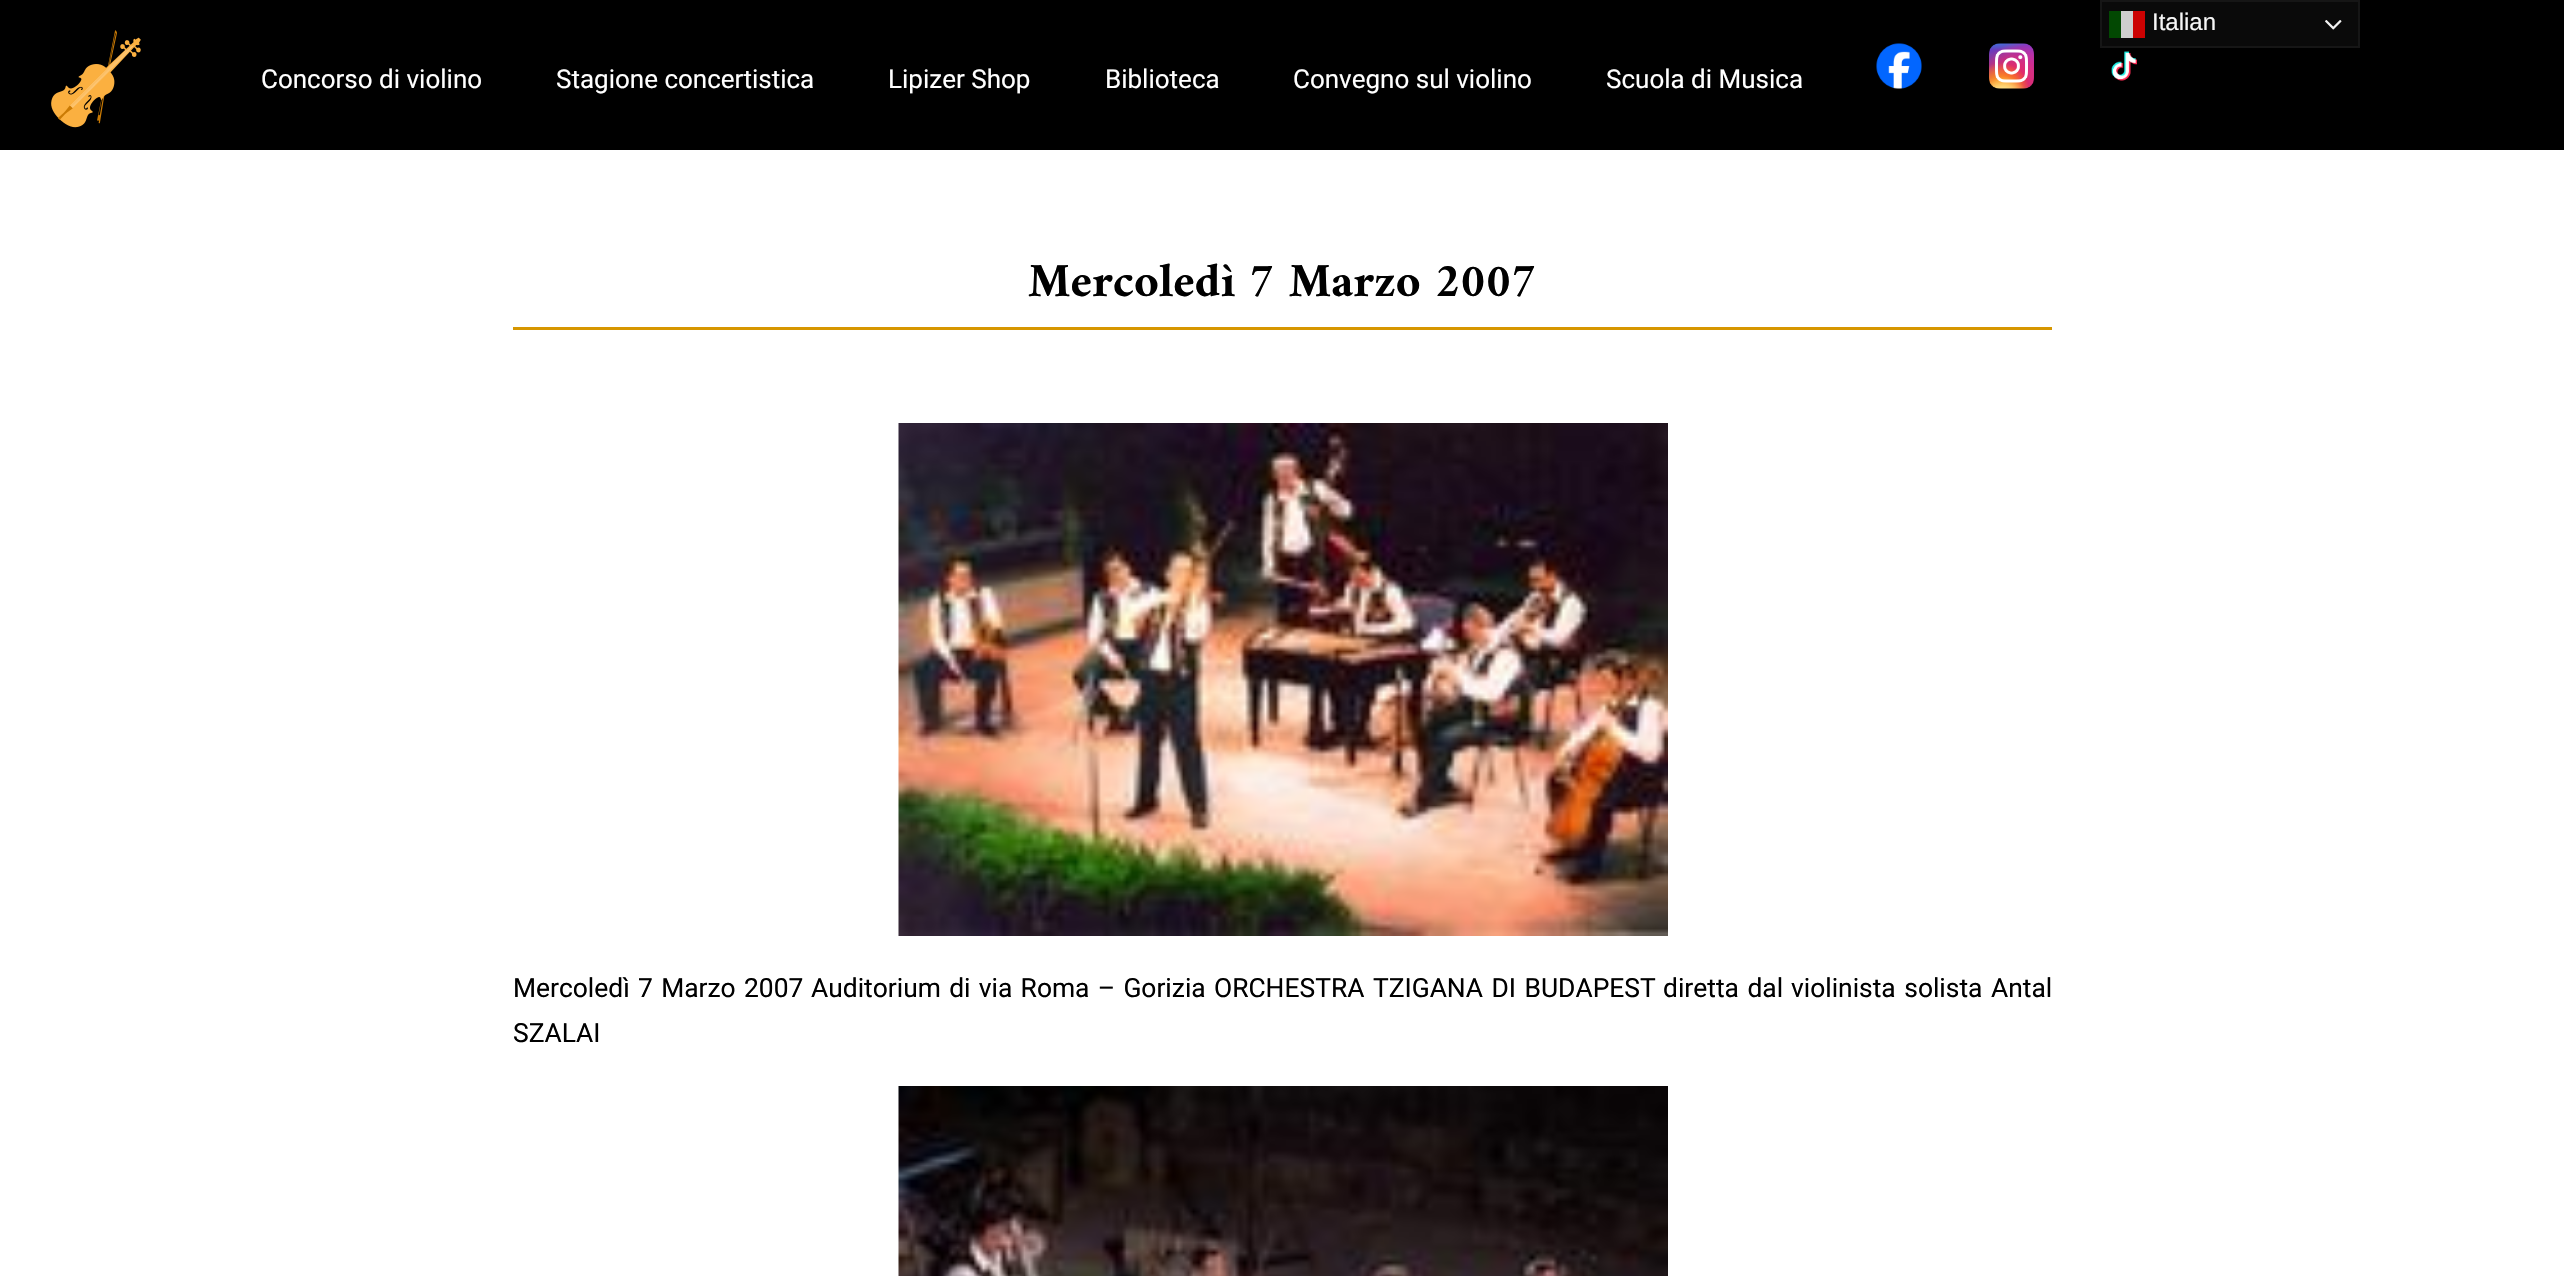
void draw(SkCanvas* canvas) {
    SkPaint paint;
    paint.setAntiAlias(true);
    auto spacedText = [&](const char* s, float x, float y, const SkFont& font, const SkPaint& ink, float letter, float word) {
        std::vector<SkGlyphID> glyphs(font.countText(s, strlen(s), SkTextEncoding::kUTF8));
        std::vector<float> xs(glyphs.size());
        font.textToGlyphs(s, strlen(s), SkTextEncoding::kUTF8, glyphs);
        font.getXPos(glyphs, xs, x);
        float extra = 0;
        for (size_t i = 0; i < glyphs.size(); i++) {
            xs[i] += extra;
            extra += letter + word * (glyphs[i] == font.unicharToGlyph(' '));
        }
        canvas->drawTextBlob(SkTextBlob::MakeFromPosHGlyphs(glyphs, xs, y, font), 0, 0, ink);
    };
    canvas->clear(0xFFFFFFFF);
    paint.setColor(0xFF000000);
    canvas->drawRect(SkRect::MakeXYWH(0, 0, 2564, 150), paint);
    paint.setColor(0xFF0A0A0A);
    canvas->drawRect(SkRect::MakeXYWH(2101, 1, 258, 46), paint);
    paint.setStyle(SkPaint::kStroke_Style);
    paint.setStrokeWidth(2);
    paint.setColor(0xFF161616);
    canvas->drawRect(SkRect::MakeXYWH(2101, 1, 258, 46), paint);
    paint.setStyle(SkPaint::kFill_Style);
    paint.setColor(0xFF024802);
    canvas->drawRect(SkRect::MakeXYWH(2109, 11, 12, 27), paint);
    paint.setColor(0xFFCECECE);
    canvas->drawRect(SkRect::MakeXYWH(2121, 11, 12, 27), paint);
    paint.setColor(0xFFCC0202);
    canvas->drawRect(SkRect::MakeXYWH(2133, 11, 12, 27), paint);
    SkFont font1(fontMgr->matchFamilyStyle("Liberation Sans", SkFontStyle::Normal()), 24);
    font1.setSubpixel(true);
    paint.setColor(0xFFF7F7F7);
    canvas->drawString("Italian", 2152, 30, font1, paint);
    canvas->drawImageRect(SkImages::DeferredFromEncodedData(SkData::MakeFromFileName("img1.png")), SkRect::MakeXYWH(2325, 20, 17, 10), SkSamplingOptions());
    canvas->drawImageRect(SkImages::DeferredFromEncodedData(SkData::MakeFromFileName("img2.png")), SkRect::MakeXYWH(51, 30, 90, 98), SkSamplingOptions());
    SkFont font2(fontMgr->matchFamilyStyle("Roboto", SkFontStyle::Normal()), 26);
    font2.setSubpixel(true);
    paint.setColor(0xFFFFFFFF);
    canvas->drawString("Concorso di violino", 261, 88, font2, paint);
    canvas->drawString("Stagione concertistica", 556, 88, font2, paint);
    canvas->drawString("Lipizer Shop", 888, 88, font2, paint);
    canvas->drawString("Biblioteca", 1105, 88, font2, paint);
    canvas->drawString("Convegno sul violino", 1293, 88, font2, paint);
    canvas->drawString("Scuola di Musica", 1606, 88, font2, paint);
    canvas->drawImageRect(SkImages::DeferredFromEncodedData(SkData::MakeFromFileName("img3.png")), SkRect::MakeXYWH(1876, 43, 46, 46), SkSamplingOptions());
    canvas->drawImageRect(SkImages::DeferredFromEncodedData(SkData::MakeFromFileName("img4.png")), SkRect::MakeXYWH(1989, 43, 45, 46), SkSamplingOptions());
    canvas->drawImageRect(SkImages::DeferredFromEncodedData(SkData::MakeFromFileName("img5.png")), SkRect::MakeXYWH(2111, 51, 26, 30), SkSamplingOptions());
    paint.setColor(0xFFD69600);
    canvas->drawRect(SkRect::MakeXYWH(513, 327, 1539, 3), paint);
    SkFont font3(fontMgr->matchFamilyStyle("Amiri", SkFontStyle::Bold()), 48);
    font3.setSubpixel(true);
    paint.setColor(0xFF000000);
    canvas->drawString("Mercoledì 7 Marzo 2007", 1028, 296, font3, paint);
    canvas->drawImageRect(SkImages::DeferredFromEncodedData(SkData::MakeFromFileName("img6.png")), SkRect::MakeXYWH(898, 423, 770, 513), SkSamplingOptions());
    SkFont font4(fontMgr->matchFamilyStyle("Roboto", SkFontStyle::Normal()), 26.4f);
    font4.setSubpixel(true);
    spacedText("Mercoledì 7 Marzo 2007", 513, 997, font4, paint, 0, 1.75f);
    spacedText("Auditorium di via Roma – Gorizia", 811, 997, font4, paint, 0, 1.75f);
    spacedText("ORCHESTRA TZIGANA DI BUDAPEST", 1214, 997, font4, paint, 0, 2);
    spacedText("diretta dal", 1663, 997, font4, paint, 0, 2);
    spacedText("violinista solista Antal", 1791, 997, font4, paint, 0, 2);
    canvas->drawString("SZALAI", 513, 1042, font4, paint);
    canvas->drawImageRect(SkImages::DeferredFromEncodedData(SkData::MakeFromFileName("img7.png")), SkRect::MakeXYWH(898, 1086, 770, 190), SkSamplingOptions());
}
